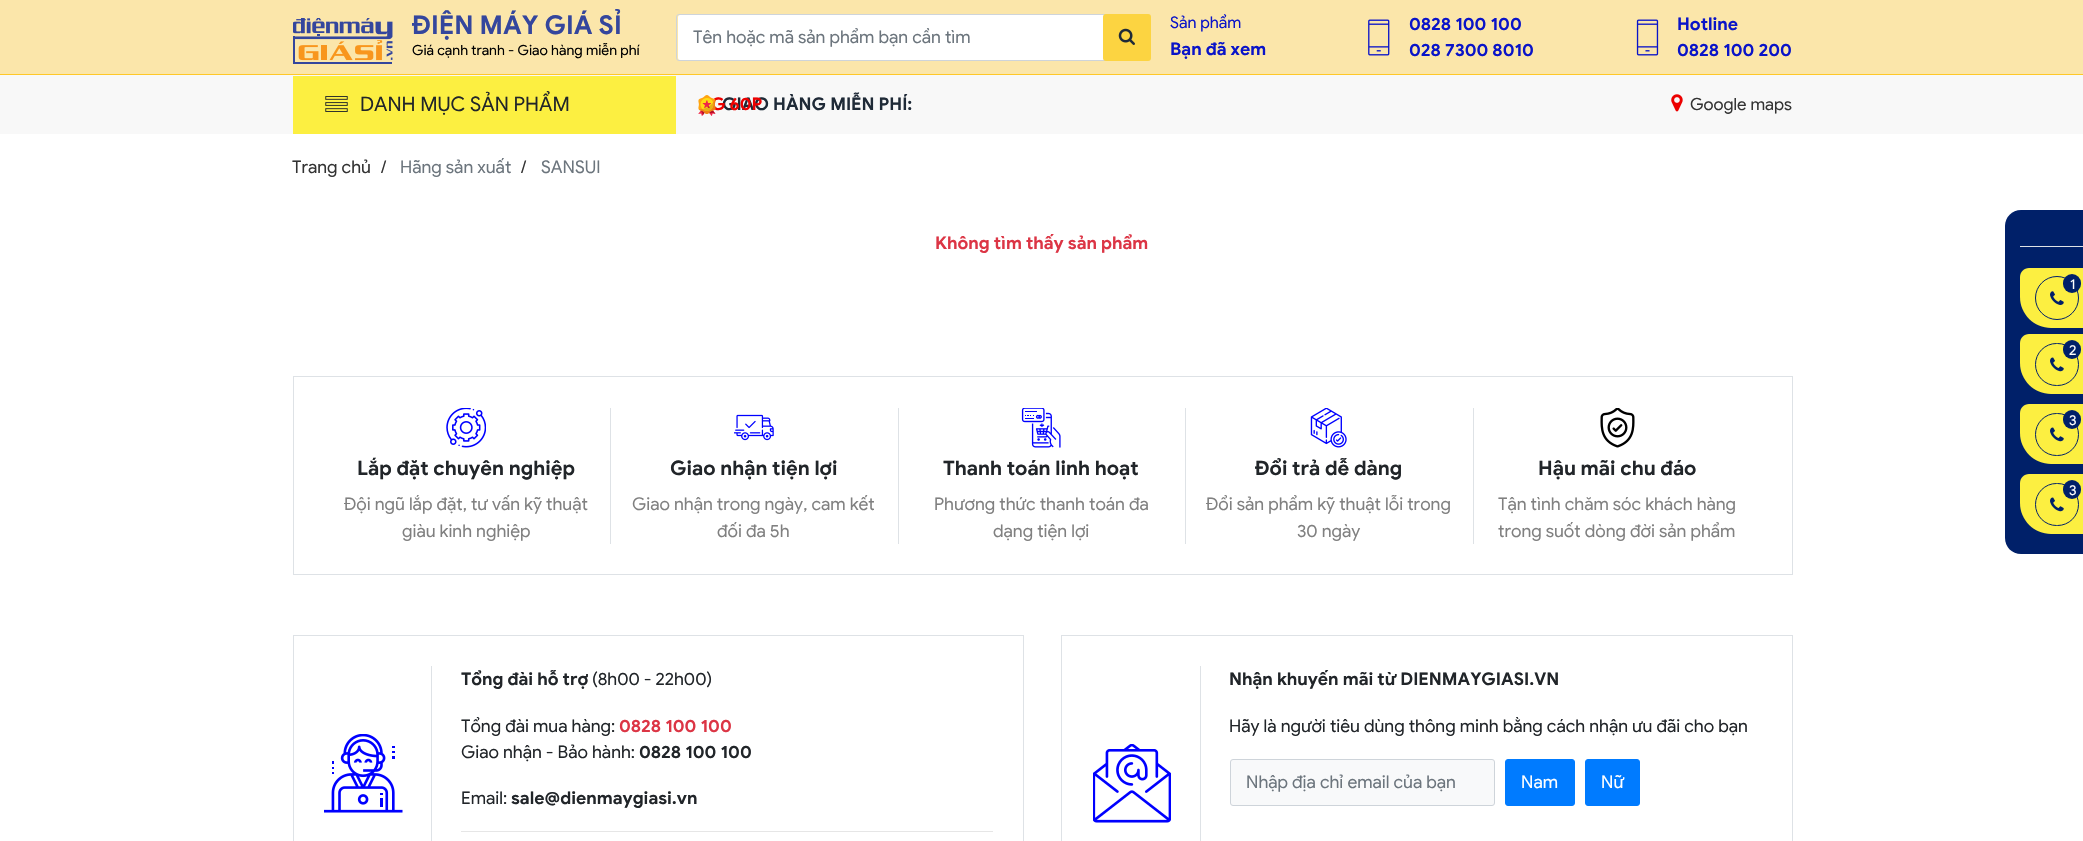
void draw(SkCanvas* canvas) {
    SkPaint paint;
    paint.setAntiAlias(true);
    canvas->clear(0xFFFFFFFF);
    paint.setColor(0xFFFBE6AA);
    canvas->drawRect(SkRect::MakeXYWH(0, 0, 2083, 74), paint);
    paint.setColor(0xFFFFC828);
    canvas->drawRect(SkRect::MakeXYWH(0, 74, 2083, 1), paint);
    canvas->drawImageRect(SkImages::DeferredFromEncodedData(SkData::MakeFromFileName("img1.png")), SkRect::MakeXYWH(293, 18, 100, 46), SkSamplingOptions());
    SkFont font1(fontMgr->matchFamilyStyle("Google Sans", SkFontStyle::Bold()), 26);
    font1.setSubpixel(true);
    paint.setColor(0xFF34469D);
    canvas->drawString("ĐIỆN MÁY GIÁ SỈ", 412, 34, font1, paint);
    SkFont font2(fontMgr->matchFamilyStyle("Google Sans", SkFontStyle::Normal()), 14);
    font2.setSubpixel(true);
    paint.setColor(0xFF000000);
    canvas->drawString("Giá cạnh tranh - Giao hàng miễn phí", 412, 55, font2, paint);
    paint.setColor(0xFFFFFFFF);
    canvas->drawRoundRect(SkRect::MakeXYWH(678, 15, 470, 45), 2, 2, paint);
    paint.setStyle(SkPaint::kStroke_Style);
    paint.setStrokeWidth(1);
    paint.setColor(0xFFCED4DA);
    canvas->drawRoundRect(SkRect::MakeXYWH(676.5f, 14.5f, 472, 46), 2.5f, 2.5f, paint);
    SkFont font3(fontMgr->matchFamilyStyle("Google Sans", SkFontStyle::Normal()), 17.5f);
    font3.setSubpixel(true);
    paint.setStyle(SkPaint::kFill_Style);
    paint.setColor(0xFF6C757D);
    canvas->drawString("Tên hoặc mã sản phẩm bạn cần tìm", 693, 43, font3, paint);
    paint.setColor(0xFFFCD441);
    canvas->drawRoundRect(SkRect::MakeXYWH(1103, 14, 48, 47), 3, 3, paint);
    canvas->drawImageRect(SkImages::DeferredFromEncodedData(SkData::MakeFromFileName("img2.png")), SkRect::MakeXYWH(1118, 28, 17, 17), SkSamplingOptions());
    SkFont font4(fontMgr->matchFamilyStyle("Google Sans", SkFontStyle::Normal()), 16);
    font4.setSubpixel(true);
    paint.setColor(0xFF0A14C8);
    canvas->drawString("Sản phẩm", 1170, 28, font4, paint);
    SkFont font5(fontMgr->matchFamilyStyle("Google Sans", SkFontStyle::Bold()), 17.5f);
    font5.setSubpixel(true);
    canvas->drawString("Bạn đã xem", 1170, 55, font5, paint);
    canvas->drawImageRect(SkImages::DeferredFromEncodedData(SkData::MakeFromFileName("img3.png")), SkRect::MakeXYWH(1368, 19, 22, 37), SkSamplingOptions());
    canvas->drawString("0828 100 100", 1409, 30, font5, paint);
    canvas->drawString("028 7300 8010", 1409, 56, font5, paint);
    canvas->drawImageRect(SkImages::DeferredFromEncodedData(SkData::MakeFromFileName("img4.png")), SkRect::MakeXYWH(1636, 19, 23, 37), SkSamplingOptions());
    canvas->drawString("Hotline", 1677, 30, font5, paint);
    canvas->drawString("0828 100 200", 1677, 56, font5, paint);
    paint.setColor(0xFFF8F8F8);
    canvas->drawRect(SkRect::MakeXYWH(0, 75, 2083, 59), paint);
    paint.setColor(0xFFFCEF41);
    canvas->drawRect(SkRect::MakeXYWH(293, 76, 383, 58), paint);
    canvas->drawImageRect(SkImages::DeferredFromEncodedData(SkData::MakeFromFileName("img5.png")), SkRect::MakeXYWH(325, 96, 23, 16), SkSamplingOptions());
    SkFont font6(fontMgr->matchFamilyStyle("Google Sans", SkFontStyle::Normal()), 20);
    font6.setSubpixel(true);
    paint.setColor(0xFF212529);
    canvas->drawString("DANH MỤC SẢN PHẨM", 360, 111, font6, paint);
    paint.setColor(0xFF1F2A37);
    canvas->drawString("GIAO HÀNG MIỄN PHÍ:", 722, 110, font5, paint);
    paint.setColor(0xFFEC0000);
    canvas->drawString("G 60P", 711, 110, font5, paint);
    canvas->drawImageRect(SkImages::DeferredFromEncodedData(SkData::MakeFromFileName("img6.png")), SkRect::MakeXYWH(698, 95, 18, 21), SkSamplingOptions());
    canvas->drawImageRect(SkImages::DeferredFromEncodedData(SkData::MakeFromFileName("img7.png")), SkRect::MakeXYWH(1671, 94, 12, 18), SkSamplingOptions());
    SkFont font7(fontMgr->matchFamilyStyle("Google Sans", SkFontStyle::Normal()), 16.75f);
    font7.setSubpixel(true);
    paint.setColor(0xFF333333);
    canvas->drawString("Google maps", 1690, 110, font7, paint);
    canvas->drawString("Trang chủ", 292, 173, font3, paint);
    canvas->drawString("/", 381, 173, font3, paint);
    paint.setColor(0xFF6C757D);
    canvas->drawString("Hãng sản xuất", 400, 173, font3, paint);
    paint.setColor(0xFF333333);
    canvas->drawString("/", 521, 173, font3, paint);
    paint.setColor(0xFF6C757D);
    canvas->drawString("SANSUI", 541, 173, font3, paint);
    paint.setColor(0xFFDC3545);
    canvas->drawString("Không tìm thấy sản phẩm", 935, 249, font5, paint);
    paint.setStyle(SkPaint::kStroke_Style);
    paint.setColor(0xFFDEE2E6);
    canvas->drawRect(SkRect::MakeXYWH(293.5f, 376.5f, 1499, 198), paint);
    paint.setStyle(SkPaint::kFill_Style);
    canvas->drawRect(SkRect::MakeXYWH(610, 408, 1, 136), paint);
    canvas->drawImageRect(SkImages::DeferredFromEncodedData(SkData::MakeFromFileName("img8.png")), SkRect::MakeXYWH(446, 408, 40, 40), SkSamplingOptions());
    SkFont font8(fontMgr->matchFamilyStyle("Google Sans", SkFontStyle::Bold()), 20);
    font8.setSubpixel(true);
    paint.setColor(0xFF212529);
    canvas->drawString("Lắp đặt chuyên nghiệp", 357, 475, font8, paint);
    paint.setColor(0xFF808080);
    canvas->drawString("Đội ngũ lắp đặt, tư vấn kỹ thuật", 344, 510, font3, paint);
    canvas->drawString("giàu kinh nghiệp", 402, 537, font3, paint);
    paint.setColor(0xFFDEE2E6);
    canvas->drawRect(SkRect::MakeXYWH(898, 408, 1, 136), paint);
    canvas->drawImageRect(SkImages::DeferredFromEncodedData(SkData::MakeFromFileName("img9.png")), SkRect::MakeXYWH(734, 414, 40, 27), SkSamplingOptions());
    paint.setColor(0xFF212529);
    canvas->drawString("Giao nhận tiện lợi", 670, 475, font8, paint);
    paint.setColor(0xFF808080);
    canvas->drawString("Giao nhận trong ngày, cam kết", 632, 510, font3, paint);
    canvas->drawString("đối đa 5h", 717, 537, font3, paint);
    paint.setColor(0xFFDEE2E6);
    canvas->drawRect(SkRect::MakeXYWH(1185, 408, 1, 136), paint);
    canvas->drawImageRect(SkImages::DeferredFromEncodedData(SkData::MakeFromFileName("img10.png")), SkRect::MakeXYWH(1021, 408, 40, 40), SkSamplingOptions());
    paint.setColor(0xFF212529);
    canvas->drawString("Thanh toán linh hoạt", 943, 475, font8, paint);
    paint.setColor(0xFF808080);
    canvas->drawString("Phương thức thanh toán đa", 934, 510, font3, paint);
    canvas->drawString("dạng tiện lợi", 993, 537, font3, paint);
    paint.setColor(0xFFDEE2E6);
    canvas->drawRect(SkRect::MakeXYWH(1473, 408, 1, 136), paint);
    canvas->drawImageRect(SkImages::DeferredFromEncodedData(SkData::MakeFromFileName("img11.png")), SkRect::MakeXYWH(1310, 408, 37, 40), SkSamplingOptions());
    paint.setColor(0xFF212529);
    canvas->drawString("Đổi trả dễ dàng", 1255, 475, font8, paint);
    paint.setColor(0xFF808080);
    canvas->drawString("Đổi sản phẩm kỹ thuật lỗi trong", 1206, 510, font3, paint);
    canvas->drawString("30 ngày", 1297, 537, font3, paint);
    canvas->drawImageRect(SkImages::DeferredFromEncodedData(SkData::MakeFromFileName("img12.png")), SkRect::MakeXYWH(1600, 408, 35, 40), SkSamplingOptions());
    paint.setColor(0xFF212529);
    canvas->drawString("Hậu mãi chu đáo", 1538, 475, font8, paint);
    paint.setColor(0xFF808080);
    canvas->drawString("Tận tình chăm sóc khách hàng", 1498, 510, font3, paint);
    canvas->drawString("trong suốt dòng đời sản phẩm", 1498, 537, font3, paint);
    paint.setStyle(SkPaint::kStroke_Style);
    paint.setColor(0xFFDEE2E6);
    canvas->drawRect(SkRect::MakeXYWH(293.5f, 635.5f, 730, 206), paint);
    canvas->drawImageRect(SkImages::DeferredFromEncodedData(SkData::MakeFromFileName("img13.png")), SkRect::MakeXYWH(324, 734, 79, 79), SkSamplingOptions());
    paint.setStyle(SkPaint::kFill_Style);
    canvas->drawRect(SkRect::MakeXYWH(431, 666, 1, 175), paint);
    paint.setColor(0xFF212529);
    canvas->drawString("Tổng đài hỗ trợ", 461, 685, font5, paint);
    canvas->drawString("(8h00 - 22h00)", 592, 685, font3, paint);
    canvas->drawString("Tổng đài mua hàng:", 461, 732, font3, paint);
    paint.setColor(0xFFDC3545);
    canvas->drawString("0828 100 100", 619, 732, font5, paint);
    paint.setColor(0xFF212529);
    canvas->drawString("Giao nhận - Bảo hành:", 461, 758, font3, paint);
    canvas->drawString("0828 100 100", 639, 758, font5, paint);
    canvas->drawString("Email:", 461, 804, font3, paint);
    canvas->drawString("sale@dienmaygiasi.vn", 511, 804, font5, paint);
    paint.setColor(0xFFE6E6E6);
    canvas->drawRect(SkRect::MakeXYWH(461, 831, 532, 1), paint);
    paint.setStyle(SkPaint::kStroke_Style);
    paint.setColor(0xFFDEE2E6);
    canvas->drawRect(SkRect::MakeXYWH(1061.5f, 635.5f, 731, 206), paint);
    canvas->drawImageRect(SkImages::DeferredFromEncodedData(SkData::MakeFromFileName("img14.png")), SkRect::MakeXYWH(1093, 744, 78, 79), SkSamplingOptions());
    paint.setStyle(SkPaint::kFill_Style);
    canvas->drawRect(SkRect::MakeXYWH(1200, 666, 1, 175), paint);
    paint.setColor(0xFF212529);
    canvas->drawString("Nhận khuyến mãi từ DIENMAYGIASI.VN", 1229, 685, font5, paint);
    canvas->drawString("Hãy là người tiêu dùng thông minh bằng cách nhận ưu đãi cho bạn", 1229, 732, font3, paint);
    paint.setColor(0xFFF8F9FA);
    canvas->drawRoundRect(SkRect::MakeXYWH(1230.5f, 759.5f, 264, 46), 2.5f, 2.5f, paint);
    paint.setStyle(SkPaint::kStroke_Style);
    paint.setColor(0xFFCED4DA);
    canvas->drawRoundRect(SkRect::MakeXYWH(1230.5f, 759.5f, 264, 46), 2.5f, 2.5f, paint);
    paint.setStyle(SkPaint::kFill_Style);
    paint.setColor(0xFF6C757D);
    canvas->drawString("Nhập địa chỉ email của bạn", 1246, 788, font3, paint);
    paint.setColor(0xFF007BFF);
    canvas->drawRoundRect(SkRect::MakeXYWH(1505.5f, 759.5f, 69, 46), 2.5f, 2.5f, paint);
    paint.setStyle(SkPaint::kStroke_Style);
    canvas->drawRoundRect(SkRect::MakeXYWH(1505.5f, 759.5f, 69, 46), 2.5f, 2.5f, paint);
    paint.setStyle(SkPaint::kFill_Style);
    paint.setColor(0xFFFFFFFF);
    canvas->drawString("Nam", 1521, 788, font3, paint);
    paint.setColor(0xFF007BFF);
    canvas->drawRoundRect(SkRect::MakeXYWH(1585.5f, 759.5f, 54, 46), 2.5f, 2.5f, paint);
    paint.setStyle(SkPaint::kStroke_Style);
    canvas->drawRoundRect(SkRect::MakeXYWH(1585.5f, 759.5f, 54, 46), 2.5f, 2.5f, paint);
    paint.setStyle(SkPaint::kFill_Style);
    paint.setColor(0xFFFFFFFF);
    canvas->drawString("Nữ", 1601, 788, font3, paint);
    paint.setColor(0xFF002069);
    canvas->drawPath(SkPathBuilder().moveTo(2021, 210).lineTo(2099, 210).lineTo(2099, 554).lineTo(2021, 554).cubicTo(2012, 554, 2005, 547, 2005, 538).lineTo(2005, 226).cubicTo(2005, 217, 2012, 210, 2021, 210).close().detach(), paint);
    paint.setColor(0xFFDEE2E6);
    canvas->drawRect(SkRect::MakeXYWH(2020, 246, 63, 1), paint);
    paint.setColor(0xFFFCEF41);
    canvas->drawPath(SkPathBuilder().moveTo(2029, 268).lineTo(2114, 268).lineTo(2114, 328).lineTo(2051, 328).cubicTo(2034, 328, 2020, 314, 2020, 297).lineTo(2020, 277).cubicTo(2020, 272, 2024, 268, 2029, 268).close().detach(), paint);
    paint.setStyle(SkPaint::kStroke_Style);
    paint.setColor(0xFF002069);
    canvas->drawCircle(2057, 298, 21.5f, paint);
    canvas->drawImageRect(SkImages::DeferredFromEncodedData(SkData::MakeFromFileName("img15.png")), SkRect::MakeXYWH(2050, 291, 14, 14), SkSamplingOptions());
    paint.setStyle(SkPaint::kFill_Style);
    canvas->drawRoundRect(SkRect::MakeXYWH(2063, 274, 18, 19), 9, 9, paint);
    paint.setColor(0xFFFFFFFF);
    canvas->drawString("1", 2070, 289, font2, paint);
    paint.setColor(0xFFFCEF41);
    canvas->drawPath(SkPathBuilder().moveTo(2029, 334).lineTo(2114, 334).lineTo(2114, 394).lineTo(2051, 394).cubicTo(2034, 394, 2020, 380, 2020, 363).lineTo(2020, 343).cubicTo(2020, 338, 2024, 334, 2029, 334).close().detach(), paint);
    paint.setStyle(SkPaint::kStroke_Style);
    paint.setColor(0xFF002069);
    canvas->drawRoundRect(SkRect::MakeXYWH(2035.5f, 343.5f, 43, 42), 21, 21, paint);
    canvas->drawImageRect(SkImages::DeferredFromEncodedData(SkData::MakeFromFileName("img16.png")), SkRect::MakeXYWH(2050, 357, 14, 15), SkSamplingOptions());
    paint.setStyle(SkPaint::kFill_Style);
    canvas->drawRoundRect(SkRect::MakeXYWH(2063, 340, 18, 19), 9, 9, paint);
    paint.setColor(0xFFFFFFFF);
    canvas->drawString("2", 2069, 355, font2, paint);
    paint.setColor(0xFFFCEF41);
    canvas->drawPath(SkPathBuilder().moveTo(2029, 404).lineTo(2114, 404).lineTo(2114, 464).lineTo(2051, 464).cubicTo(2034, 464, 2020, 450, 2020, 433).lineTo(2020, 413).cubicTo(2020, 408, 2024, 404, 2029, 404).close().detach(), paint);
    paint.setStyle(SkPaint::kStroke_Style);
    paint.setColor(0xFF002069);
    canvas->drawRoundRect(SkRect::MakeXYWH(2035.5f, 413.5f, 43, 42), 21, 21, paint);
    canvas->drawImageRect(SkImages::DeferredFromEncodedData(SkData::MakeFromFileName("img16.png")), SkRect::MakeXYWH(2050, 427, 14, 15), SkSamplingOptions());
    paint.setStyle(SkPaint::kFill_Style);
    canvas->drawRoundRect(SkRect::MakeXYWH(2063, 410, 18, 19), 9, 9, paint);
    paint.setColor(0xFFFFFFFF);
    canvas->drawString("3", 2069, 425, font2, paint);
    paint.setColor(0xFFFCEF41);
    canvas->drawPath(SkPathBuilder().moveTo(2029, 474).lineTo(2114, 474).lineTo(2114, 534).lineTo(2051, 534).cubicTo(2034, 534, 2020, 520, 2020, 503).lineTo(2020, 483).cubicTo(2020, 478, 2024, 474, 2029, 474).close().detach(), paint);
    paint.setStyle(SkPaint::kStroke_Style);
    paint.setColor(0xFF002069);
    canvas->drawRoundRect(SkRect::MakeXYWH(2035.5f, 483.5f, 43, 42), 21, 21, paint);
    canvas->drawImageRect(SkImages::DeferredFromEncodedData(SkData::MakeFromFileName("img16.png")), SkRect::MakeXYWH(2050, 497, 14, 15), SkSamplingOptions());
    paint.setStyle(SkPaint::kFill_Style);
    canvas->drawRoundRect(SkRect::MakeXYWH(2063, 480, 18, 19), 9, 9, paint);
    paint.setColor(0xFFFFFFFF);
    canvas->drawString("3", 2069, 495, font2, paint);
}
